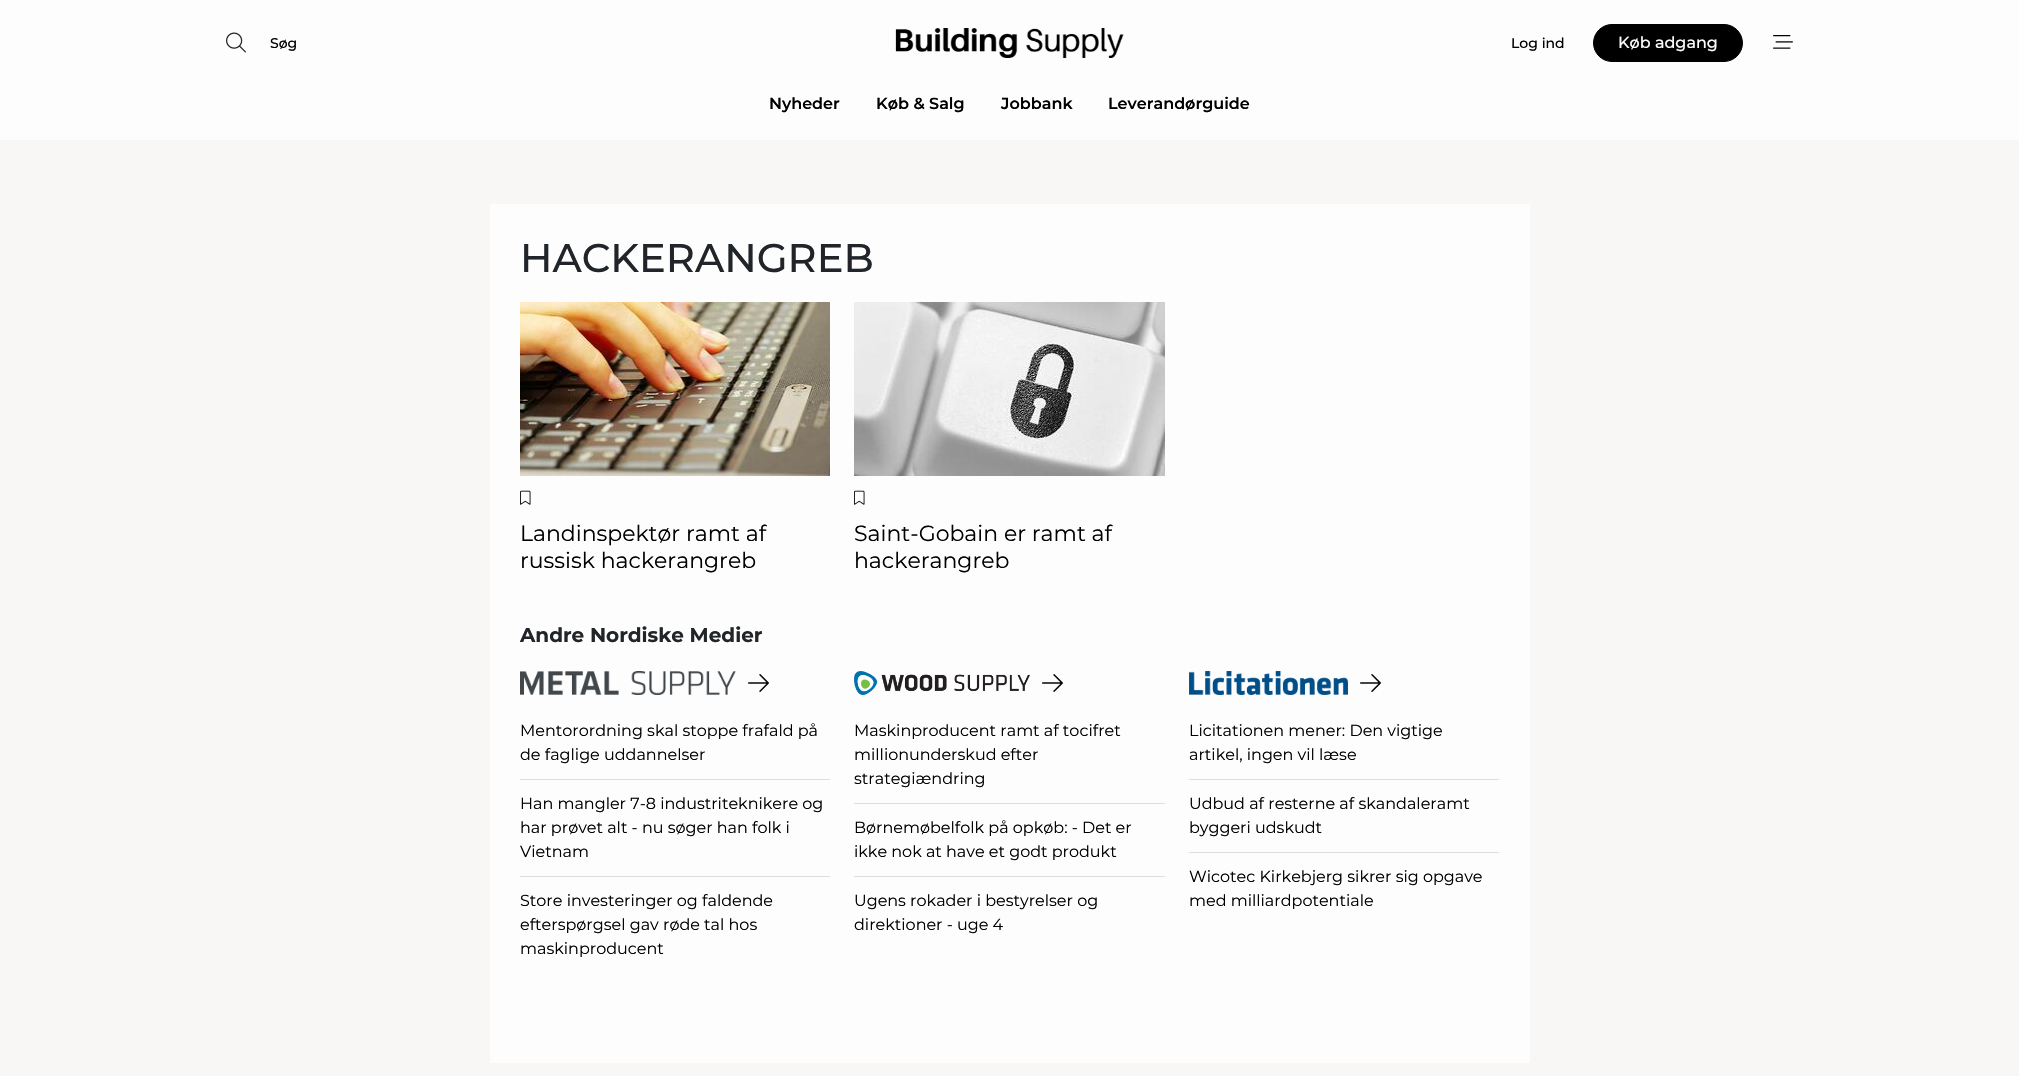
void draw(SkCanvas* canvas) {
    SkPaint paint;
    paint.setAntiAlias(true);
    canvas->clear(0xFFF8F7F6);
    paint.setColor(0xFFFDFDFD);
    canvas->drawRect(SkRect::MakeXYWH(0, 0, 2019, 140), paint);
    canvas->drawImageRect(SkImages::DeferredFromEncodedData(SkData::MakeFromFileName("img1.png")), SkRect::MakeXYWH(226, 32, 20, 21), SkSamplingOptions());
    SkFont font1(fontMgr->matchFamilyStyle("Montserrat", SkFontStyle(500, SkFontStyle::kNormal_Width, SkFontStyle::kUpright_Slant)), 14);
    font1.setSubpixel(true);
    paint.setColor(0xFF000000);
    canvas->drawString("Søg", 270, 48, font1, paint);
    canvas->drawImageRect(SkImages::DeferredFromEncodedData(SkData::MakeFromFileName("img2.png")), SkRect::MakeXYWH(895, 28, 229, 30), SkSamplingOptions());
    canvas->drawString("Log ind", 1511, 48, font1, paint);
    canvas->drawRoundRect(SkRect::MakeXYWH(1593.5f, 24.5f, 149, 37), 18.5f, 18.5f, paint);
    paint.setStyle(SkPaint::kStroke_Style);
    paint.setStrokeWidth(1);
    canvas->drawRoundRect(SkRect::MakeXYWH(1593.5f, 24.5f, 149, 37), 18.5f, 18.5f, paint);
    SkFont font2(fontMgr->matchFamilyStyle("Montserrat", SkFontStyle(500, SkFontStyle::kNormal_Width, SkFontStyle::kUpright_Slant)), 16);
    font2.setSubpixel(true);
    paint.setStyle(SkPaint::kFill_Style);
    paint.setColor(0xFFFDFDFD);
    canvas->drawString("Køb adgang", 1618, 48, font2, paint);
    canvas->drawImageRect(SkImages::DeferredFromEncodedData(SkData::MakeFromFileName("img3.png")), SkRect::MakeXYWH(1773, 35, 20, 14), SkSamplingOptions());
    SkFont font3(fontMgr->matchFamilyStyle("Montserrat", SkFontStyle(600, SkFontStyle::kNormal_Width, SkFontStyle::kUpright_Slant)), 16);
    font3.setSubpixel(true);
    paint.setColor(0xFF000000);
    canvas->drawString("Nyheder", 769, 109, font3, paint);
    canvas->drawString("Køb & Salg", 876, 109, font3, paint);
    canvas->drawString("Jobbank", 1001, 109, font3, paint);
    canvas->drawString("Leverandørguide", 1108, 109, font3, paint);
    paint.setColor(0xFFFDFDFD);
    canvas->drawRect(SkRect::MakeXYWH(490, 204, 1040, 859), paint);
    SkFont font4(fontMgr->matchFamilyStyle("Montserrat", SkFontStyle(500, SkFontStyle::kNormal_Width, SkFontStyle::kUpright_Slant)), 40);
    font4.setSubpixel(true);
    paint.setColor(0xFF212529);
    canvas->drawString("HACKERANGREB", 520, 272, font4, paint);
    canvas->drawImageRect(SkImages::DeferredFromEncodedData(SkData::MakeFromFileName("img4.png")), SkRect::MakeXYWH(520, 302, 310, 174), SkSamplingOptions());
    canvas->drawImageRect(SkImages::DeferredFromEncodedData(SkData::MakeFromFileName("img5.png")), SkRect::MakeXYWH(520, 490, 11, 15), SkSamplingOptions());
    SkFont font5(fontMgr->matchFamilyStyle("Montserrat", SkFontStyle::Normal()), 22);
    font5.setSubpixel(true);
    paint.setColor(0xFF000000);
    canvas->drawString("Landinspektør ramt af", 520, 541, font5, paint);
    canvas->drawString("russisk hackerangreb", 520, 568, font5, paint);
    canvas->drawImageRect(SkImages::DeferredFromEncodedData(SkData::MakeFromFileName("img6.png")), SkRect::MakeXYWH(854, 302, 311, 174), SkSamplingOptions());
    canvas->drawImageRect(SkImages::DeferredFromEncodedData(SkData::MakeFromFileName("img5.png")), SkRect::MakeXYWH(854, 490, 11, 15), SkSamplingOptions());
    canvas->drawString("Saint-Gobain er ramt af", 854, 541, font5, paint);
    canvas->drawString("hackerangreb", 854, 568, font5, paint);
    SkFont font6(fontMgr->matchFamilyStyle("Montserrat", SkFontStyle::Bold()), 20);
    font6.setSubpixel(true);
    paint.setColor(0xFF212529);
    canvas->drawString("Andre Nordiske Medier", 520, 642, font6, paint);
    canvas->drawImageRect(SkImages::DeferredFromEncodedData(SkData::MakeFromFileName("img7.png")), SkRect::MakeXYWH(520, 671, 216, 24), SkSamplingOptions());
    canvas->drawImageRect(SkImages::DeferredFromEncodedData(SkData::MakeFromFileName("img8.png")), SkRect::MakeXYWH(748, 674, 21, 18), SkSamplingOptions());
    SkFont font7(fontMgr->matchFamilyStyle("Montserrat", SkFontStyle::Normal()), 16);
    font7.setSubpixel(true);
    paint.setColor(0xFF000000);
    canvas->drawString("Mentorordning skal stoppe frafald på", 520, 736, font7, paint);
    canvas->drawString("de faglige uddannelser", 520, 760, font7, paint);
    paint.setColor(0xFFDFDEDD);
    canvas->drawRect(SkRect::MakeXYWH(520, 779, 310, 1), paint);
    paint.setColor(0xFF000000);
    canvas->drawString("Han mangler 7-8 industriteknikere og", 520, 809, font7, paint);
    canvas->drawString("har prøvet alt - nu søger han folk i", 520, 833, font7, paint);
    canvas->drawString("Vietnam", 520, 857, font7, paint);
    paint.setColor(0xFFDFDEDD);
    canvas->drawRect(SkRect::MakeXYWH(520, 876, 310, 1), paint);
    paint.setColor(0xFF000000);
    canvas->drawString("Store investeringer og faldende", 520, 906, font7, paint);
    canvas->drawString("efterspørgsel gav røde tal hos", 520, 930, font7, paint);
    canvas->drawString("maskinproducent", 520, 954, font7, paint);
    canvas->drawImageRect(SkImages::DeferredFromEncodedData(SkData::MakeFromFileName("img9.png")), SkRect::MakeXYWH(854, 671, 176, 24), SkSamplingOptions());
    canvas->drawImageRect(SkImages::DeferredFromEncodedData(SkData::MakeFromFileName("img8.png")), SkRect::MakeXYWH(1042, 674, 21, 18), SkSamplingOptions());
    canvas->drawString("Maskinproducent ramt af tocifret", 854, 736, font7, paint);
    canvas->drawString("millionunderskud efter", 854, 760, font7, paint);
    canvas->drawString("strategiændring", 854, 784, font7, paint);
    paint.setColor(0xFFDFDEDD);
    canvas->drawRect(SkRect::MakeXYWH(854, 803, 311, 1), paint);
    paint.setColor(0xFF000000);
    canvas->drawString("Børnemøbelfolk på opkøb: - Det er", 854, 833, font7, paint);
    canvas->drawString("ikke nok at have et godt produkt", 854, 857, font7, paint);
    paint.setColor(0xFFDFDEDD);
    canvas->drawRect(SkRect::MakeXYWH(854, 876, 311, 1), paint);
    paint.setColor(0xFF000000);
    canvas->drawString("Ugens rokader i bestyrelser og", 854, 906, font7, paint);
    canvas->drawString("direktioner - uge 4", 854, 930, font7, paint);
    canvas->drawImageRect(SkImages::DeferredFromEncodedData(SkData::MakeFromFileName("img10.png")), SkRect::MakeXYWH(1189, 671, 159, 24), SkSamplingOptions());
    canvas->drawImageRect(SkImages::DeferredFromEncodedData(SkData::MakeFromFileName("img8.png")), SkRect::MakeXYWH(1360, 674, 21, 18), SkSamplingOptions());
    canvas->drawString("Licitationen mener: Den vigtige", 1189, 736, font7, paint);
    canvas->drawString("artikel, ingen vil læse", 1189, 760, font7, paint);
    paint.setColor(0xFFDFDEDD);
    canvas->drawRect(SkRect::MakeXYWH(1189, 779, 310, 1), paint);
    paint.setColor(0xFF000000);
    canvas->drawString("Udbud af resterne af skandaleramt", 1189, 809, font7, paint);
    canvas->drawString("byggeri udskudt", 1189, 833, font7, paint);
    paint.setColor(0xFFDFDEDD);
    canvas->drawRect(SkRect::MakeXYWH(1189, 852, 310, 1), paint);
    paint.setColor(0xFF000000);
    canvas->drawString("Wicotec Kirkebjerg sikrer sig opgave", 1189, 882, font7, paint);
    canvas->drawString("med milliardpotentiale", 1189, 906, font7, paint);
}
